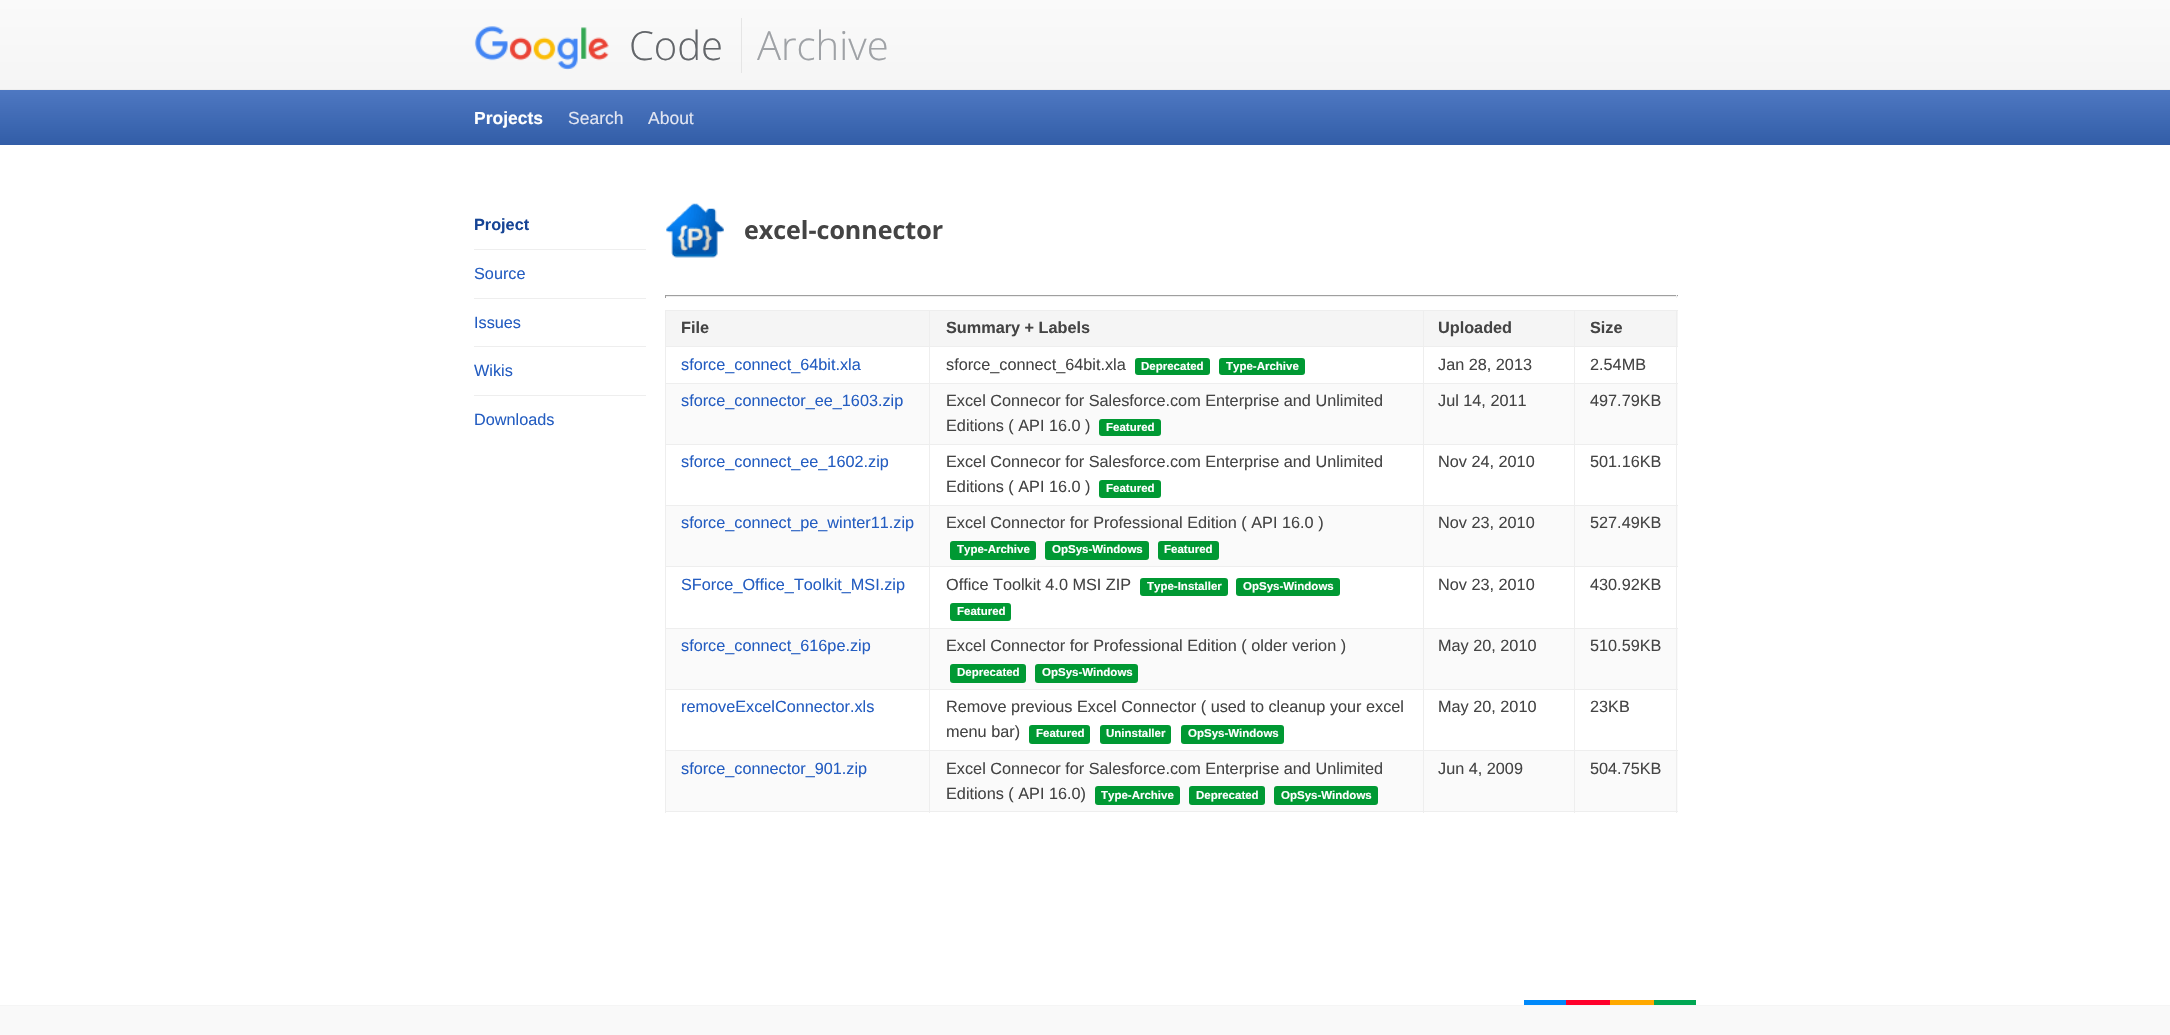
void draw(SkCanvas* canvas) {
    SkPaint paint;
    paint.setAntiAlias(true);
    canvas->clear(0xFFFFFFFF);
    {
        const SkColor colors[] = {0xFFFAFAFA, 0xFFF5F5F5};
        const float stops[] = {0, 1};
        const SkPoint ends[] = {{0, 0}, {0, 89}};
        paint.setShader(SkGradientShader::MakeLinear(ends, colors, stops, 2, SkTileMode::kClamp));
        paint.setAlpha(255);
    }
    canvas->drawRect(SkRect::MakeXYWH(0, 0, 2170, 89), paint);
    paint.setShader(nullptr);
    paint.setColor(0xFFEEEEEE);
    canvas->drawRect(SkRect::MakeXYWH(0, 89, 2170, 1), paint);
    canvas->drawImageRect(SkImages::DeferredFromEncodedData(SkData::MakeFromFileName("img1.png")), SkRect::MakeXYWH(474, 26, 135, 44), SkSamplingOptions());
    SkFont font1(fontMgr->matchFamilyStyle("Open Sans", SkFontStyle(300, SkFontStyle::kNormal_Width, SkFontStyle::kUpright_Slant)), 40);
    font1.setSubpixel(true);
    paint.setColor(0xFF63666A);
    canvas->drawString("Code", 629, 60, font1, paint);
    paint.setColor(0xFFE5E5E5);
    canvas->drawRect(SkRect::MakeXYWH(741, 18, 1, 55), paint);
    paint.setColor(0xFF9FA2A6);
    canvas->drawString("Archive", 757, 60, font1, paint);
    {
        const SkColor colors[] = {0xFF4E78C2, 0xFF325DA7};
        const float stops[] = {0, 1};
        const SkPoint ends[] = {{0, 90}, {0, 145}};
        paint.setShader(SkGradientShader::MakeLinear(ends, colors, stops, 2, SkTileMode::kClamp));
        paint.setAlpha(255);
    }
    canvas->drawRect(SkRect::MakeXYWH(0, 90, 2170, 55), paint);
    SkFont font2(fontMgr->matchFamilyStyle("Liberation Sans", SkFontStyle::Bold()), 17.5f);
    font2.setSubpixel(true);
    paint.setShader(nullptr);
    paint.setColor(0xFFFFFFFF);
    canvas->drawString("Projects", 474, 124, font2, paint);
    SkFont font3(fontMgr->matchFamilyStyle("Liberation Sans", SkFontStyle::Normal()), 17.5f);
    font3.setSubpixel(true);
    paint.setColor(0xFFE1E5F2);
    canvas->drawString("Search", 568, 124, font3, paint);
    canvas->drawString("About", 648, 124, font3, paint);
    paint.setColor(0xFFEEEEEE);
    canvas->drawRect(SkRect::MakeXYWH(474, 249, 172, 1), paint);
    SkFont font4(fontMgr->matchFamilyStyle("Liberation Sans", SkFontStyle::Bold()), 16.25f);
    font4.setSubpixel(true);
    paint.setColor(0xFF164495);
    canvas->drawString("Project", 474, 230, font4, paint);
    paint.setColor(0xFFEEEEEE);
    canvas->drawRect(SkRect::MakeXYWH(474, 298, 172, 1), paint);
    SkFont font5(fontMgr->matchFamilyStyle("Liberation Sans", SkFontStyle::Normal()), 16.25f);
    font5.setSubpixel(true);
    paint.setColor(0xFF245DC1);
    canvas->drawString("Source", 474, 279, font5, paint);
    paint.setColor(0xFFEEEEEE);
    canvas->drawRect(SkRect::MakeXYWH(474, 346, 172, 1), paint);
    paint.setColor(0xFF245DC1);
    canvas->drawString("Issues", 474, 328, font5, paint);
    paint.setColor(0xFFEEEEEE);
    canvas->drawRect(SkRect::MakeXYWH(474, 395, 172, 1), paint);
    paint.setColor(0xFF245DC1);
    canvas->drawString("Wikis", 474, 376, font5, paint);
    canvas->drawString("Downloads", 474, 425, font5, paint);
    canvas->drawImageRect(SkImages::DeferredFromEncodedData(SkData::MakeFromFileName("img2.png")), SkRect::MakeXYWH(666, 203, 58, 55), SkSamplingOptions());
    SkFont font6(fontMgr->matchFamilyStyle("Open Sans", SkFontStyle::Bold()), 25);
    font6.setSubpixel(true);
    paint.setColor(0xFF444444);
    canvas->drawString("excel-connector", 744, 239, font6, paint);
    paint.setColor(0xFF9F9F9F);
    canvas->drawRect(SkRect::MakeXYWH(665, 295, 1013, 1), paint);
    paint.setColor(0xFFEEEEEE);
    canvas->drawRect(SkRect::MakeXYWH(1676, 295, 1, 3), paint);
    canvas->drawRect(SkRect::MakeXYWH(665, 296, 1013, 1), paint);
    paint.setColor(0xFF9F9F9F);
    canvas->drawRect(SkRect::MakeXYWH(665, 295, 1, 3), paint);
    paint.setColor(0xFFF5F5F5);
    canvas->drawRect(SkRect::MakeXYWH(666, 311, 263, 35), paint);
    paint.setColor(0xFFEEEEEE);
    canvas->drawRect(SkRect::MakeXYWH(1574, 310, 104, 1), paint);
    canvas->drawRect(SkRect::MakeXYWH(1574, 346, 104, 1), paint);
    canvas->drawRect(SkRect::MakeXYWH(1574, 383, 104, 1), paint);
    paint.setColor(0xFFFAFAFA);
    canvas->drawRect(SkRect::MakeXYWH(666, 384, 1012, 60), paint);
    paint.setColor(0xFFEEEEEE);
    canvas->drawRect(SkRect::MakeXYWH(1574, 444, 104, 1), paint);
    canvas->drawRect(SkRect::MakeXYWH(1574, 505, 104, 1), paint);
    paint.setColor(0xFFFAFAFA);
    canvas->drawRect(SkRect::MakeXYWH(666, 506, 1012, 60), paint);
    paint.setColor(0xFFEEEEEE);
    canvas->drawRect(SkRect::MakeXYWH(1574, 566, 104, 1), paint);
    canvas->drawRect(SkRect::MakeXYWH(1574, 628, 104, 1), paint);
    paint.setColor(0xFFFAFAFA);
    canvas->drawRect(SkRect::MakeXYWH(666, 629, 1012, 60), paint);
    paint.setColor(0xFFEEEEEE);
    canvas->drawRect(SkRect::MakeXYWH(1574, 689, 104, 1), paint);
    canvas->drawRect(SkRect::MakeXYWH(1574, 750, 104, 1), paint);
    paint.setColor(0xFFFAFAFA);
    canvas->drawRect(SkRect::MakeXYWH(666, 751, 1012, 60), paint);
    paint.setColor(0xFFEEEEEE);
    canvas->drawRect(SkRect::MakeXYWH(1676, 750, 1, 63), paint);
    canvas->drawRect(SkRect::MakeXYWH(1574, 811, 104, 1), paint);
    canvas->drawRect(SkRect::MakeXYWH(1574, 750, 1, 63), paint);
    canvas->drawRect(SkRect::MakeXYWH(1423, 750, 152, 1), paint);
    canvas->drawRect(SkRect::MakeXYWH(1574, 689, 1, 62), paint);
    canvas->drawRect(SkRect::MakeXYWH(1423, 689, 152, 1), paint);
    canvas->drawRect(SkRect::MakeXYWH(1574, 628, 1, 62), paint);
    canvas->drawRect(SkRect::MakeXYWH(1423, 628, 152, 1), paint);
    canvas->drawRect(SkRect::MakeXYWH(1574, 566, 1, 63), paint);
    canvas->drawRect(SkRect::MakeXYWH(1423, 566, 152, 1), paint);
    canvas->drawRect(SkRect::MakeXYWH(1574, 505, 1, 63), paint);
    canvas->drawRect(SkRect::MakeXYWH(1423, 505, 152, 1), paint);
    canvas->drawRect(SkRect::MakeXYWH(1574, 444, 1, 62), paint);
    canvas->drawRect(SkRect::MakeXYWH(1423, 444, 152, 1), paint);
    canvas->drawRect(SkRect::MakeXYWH(1574, 383, 1, 62), paint);
    canvas->drawRect(SkRect::MakeXYWH(1423, 383, 152, 1), paint);
    canvas->drawRect(SkRect::MakeXYWH(1574, 346, 1, 38), paint);
    canvas->drawRect(SkRect::MakeXYWH(1423, 346, 152, 1), paint);
    canvas->drawRect(SkRect::MakeXYWH(1574, 310, 1, 38), paint);
    canvas->drawRect(SkRect::MakeXYWH(1423, 310, 152, 1), paint);
    canvas->drawRect(SkRect::MakeXYWH(1423, 811, 152, 1), paint);
    canvas->drawRect(SkRect::MakeXYWH(1423, 750, 1, 63), paint);
    canvas->drawRect(SkRect::MakeXYWH(929, 750, 495, 1), paint);
    canvas->drawRect(SkRect::MakeXYWH(1423, 689, 1, 62), paint);
    canvas->drawRect(SkRect::MakeXYWH(929, 689, 495, 1), paint);
    canvas->drawRect(SkRect::MakeXYWH(1423, 628, 1, 62), paint);
    canvas->drawRect(SkRect::MakeXYWH(929, 628, 495, 1), paint);
    canvas->drawRect(SkRect::MakeXYWH(1423, 566, 1, 63), paint);
    canvas->drawRect(SkRect::MakeXYWH(929, 566, 495, 1), paint);
    canvas->drawRect(SkRect::MakeXYWH(1423, 505, 1, 63), paint);
    canvas->drawRect(SkRect::MakeXYWH(929, 505, 495, 1), paint);
    canvas->drawRect(SkRect::MakeXYWH(1423, 444, 1, 62), paint);
    canvas->drawRect(SkRect::MakeXYWH(929, 444, 495, 1), paint);
    canvas->drawRect(SkRect::MakeXYWH(1423, 383, 1, 62), paint);
    canvas->drawRect(SkRect::MakeXYWH(929, 383, 495, 1), paint);
    canvas->drawRect(SkRect::MakeXYWH(1423, 346, 1, 38), paint);
    canvas->drawRect(SkRect::MakeXYWH(929, 346, 495, 1), paint);
    canvas->drawRect(SkRect::MakeXYWH(1423, 310, 1, 38), paint);
    canvas->drawRect(SkRect::MakeXYWH(929, 310, 495, 1), paint);
    canvas->drawRect(SkRect::MakeXYWH(929, 811, 495, 1), paint);
    canvas->drawRect(SkRect::MakeXYWH(929, 750, 1, 63), paint);
    canvas->drawRect(SkRect::MakeXYWH(665, 750, 265, 1), paint);
    canvas->drawRect(SkRect::MakeXYWH(929, 689, 1, 62), paint);
    canvas->drawRect(SkRect::MakeXYWH(665, 689, 265, 1), paint);
    canvas->drawRect(SkRect::MakeXYWH(929, 628, 1, 62), paint);
    canvas->drawRect(SkRect::MakeXYWH(665, 628, 265, 1), paint);
    canvas->drawRect(SkRect::MakeXYWH(929, 566, 1, 63), paint);
    canvas->drawRect(SkRect::MakeXYWH(665, 566, 265, 1), paint);
    canvas->drawRect(SkRect::MakeXYWH(929, 505, 1, 63), paint);
    canvas->drawRect(SkRect::MakeXYWH(665, 505, 265, 1), paint);
    canvas->drawRect(SkRect::MakeXYWH(929, 444, 1, 62), paint);
    canvas->drawRect(SkRect::MakeXYWH(665, 444, 265, 1), paint);
    canvas->drawRect(SkRect::MakeXYWH(929, 383, 1, 62), paint);
    canvas->drawRect(SkRect::MakeXYWH(665, 383, 265, 1), paint);
    canvas->drawRect(SkRect::MakeXYWH(929, 346, 1, 38), paint);
    canvas->drawRect(SkRect::MakeXYWH(665, 346, 265, 1), paint);
    canvas->drawRect(SkRect::MakeXYWH(929, 310, 1, 38), paint);
    canvas->drawRect(SkRect::MakeXYWH(665, 310, 265, 1), paint);
    canvas->drawRect(SkRect::MakeXYWH(665, 811, 265, 1), paint);
    canvas->drawRect(SkRect::MakeXYWH(665, 750, 1, 63), paint);
    canvas->drawRect(SkRect::MakeXYWH(665, 689, 1, 62), paint);
    canvas->drawRect(SkRect::MakeXYWH(665, 628, 1, 62), paint);
    canvas->drawRect(SkRect::MakeXYWH(665, 566, 1, 63), paint);
    canvas->drawRect(SkRect::MakeXYWH(665, 505, 1, 63), paint);
    canvas->drawRect(SkRect::MakeXYWH(665, 444, 1, 62), paint);
    canvas->drawRect(SkRect::MakeXYWH(665, 383, 1, 62), paint);
    canvas->drawRect(SkRect::MakeXYWH(665, 346, 1, 38), paint);
    canvas->drawRect(SkRect::MakeXYWH(665, 310, 1, 38), paint);
    paint.setColor(0xFF444444);
    canvas->drawString("File", 681, 333, font4, paint);
    paint.setColor(0xFFF5F5F5);
    canvas->drawRect(SkRect::MakeXYWH(930, 311, 493, 35), paint);
    paint.setColor(0xFF444444);
    canvas->drawString("Summary + Labels", 946, 333, font4, paint);
    paint.setColor(0xFFF5F5F5);
    canvas->drawRect(SkRect::MakeXYWH(1424, 311, 150, 35), paint);
    paint.setColor(0xFF444444);
    canvas->drawString("Uploaded", 1438, 333, font4, paint);
    paint.setColor(0xFFF5F5F5);
    canvas->drawRect(SkRect::MakeXYWH(1575, 311, 103, 35), paint);
    paint.setColor(0xFFEEEEEE);
    canvas->drawRect(SkRect::MakeXYWH(1676, 689, 1, 62), paint);
    canvas->drawRect(SkRect::MakeXYWH(1676, 628, 1, 62), paint);
    canvas->drawRect(SkRect::MakeXYWH(1676, 566, 1, 63), paint);
    canvas->drawRect(SkRect::MakeXYWH(1676, 505, 1, 63), paint);
    canvas->drawRect(SkRect::MakeXYWH(1676, 444, 1, 62), paint);
    canvas->drawRect(SkRect::MakeXYWH(1676, 383, 1, 62), paint);
    canvas->drawRect(SkRect::MakeXYWH(1676, 346, 1, 38), paint);
    canvas->drawRect(SkRect::MakeXYWH(1676, 310, 1, 38), paint);
    paint.setColor(0xFF444444);
    canvas->drawString("Size", 1590, 333, font4, paint);
    paint.setColor(0xFF245DC1);
    canvas->drawString("sforce_connect_64bit.xla", 681, 370, font5, paint);
    paint.setColor(0xFF444444);
    canvas->drawString("sforce_connect_64bit.xla", 946, 370, font5, paint);
    paint.setColor(0xFF009933);
    canvas->drawRoundRect(SkRect::MakeXYWH(1135, 358, 75, 17), 3, 3, paint);
    SkFont font7(fontMgr->matchFamilyStyle("Liberation Sans", SkFontStyle::Bold()), 11.5f);
    font7.setSubpixel(true);
    paint.setColor(0xFFFFFFFF);
    canvas->drawString("Deprecated", 1141, 370, font7, paint);
    paint.setColor(0xFF009933);
    canvas->drawRoundRect(SkRect::MakeXYWH(1219, 358, 86, 17), 3, 3, paint);
    paint.setColor(0xFFFFFFFF);
    canvas->drawString("Type-Archive", 1226, 370, font7, paint);
    paint.setColor(0xFF444444);
    canvas->drawString("Jan 28, 2013", 1438, 370, font5, paint);
    canvas->drawString("2.54MB", 1590, 370, font5, paint);
    paint.setColor(0xFF245DC1);
    canvas->drawString("sforce_connector_ee_1603.zip", 681, 406, font5, paint);
    paint.setColor(0xFF444444);
    canvas->drawString("Excel Connecor for Salesforce.com Enterprise and Unlimited", 946, 406, font5, paint);
    canvas->drawString("Editions ( API 16.0 )", 946, 431, font5, paint);
    paint.setColor(0xFF009933);
    canvas->drawRoundRect(SkRect::MakeXYWH(1099, 419, 62, 17), 3, 3, paint);
    paint.setColor(0xFFFFFFFF);
    canvas->drawString("Featured", 1106, 431, font7, paint);
    paint.setColor(0xFF444444);
    canvas->drawString("Jul 14, 2011", 1438, 406, font5, paint);
    canvas->drawString("497.79KB", 1590, 406, font5, paint);
    paint.setColor(0xFF245DC1);
    canvas->drawString("sforce_connect_ee_1602.zip", 681, 467, font5, paint);
    paint.setColor(0xFF444444);
    canvas->drawString("Excel Connecor for Salesforce.com Enterprise and Unlimited", 946, 467, font5, paint);
    canvas->drawString("Editions ( API 16.0 )", 946, 492, font5, paint);
    paint.setColor(0xFF009933);
    canvas->drawRoundRect(SkRect::MakeXYWH(1099, 480, 62, 18), 3, 3, paint);
    paint.setColor(0xFFFFFFFF);
    canvas->drawString("Featured", 1106, 492, font7, paint);
    paint.setColor(0xFF444444);
    canvas->drawString("Nov 24, 2010", 1438, 467, font5, paint);
    canvas->drawString("501.16KB", 1590, 467, font5, paint);
    paint.setColor(0xFF245DC1);
    canvas->drawString("sforce_connect_pe_winter11.zip", 681, 528, font5, paint);
    paint.setColor(0xFF444444);
    canvas->drawString("Excel Connector for Professional Edition ( API 16.0 )", 946, 528, font5, paint);
    paint.setColor(0xFF009933);
    canvas->drawRoundRect(SkRect::MakeXYWH(950, 541, 86, 19), 3, 3, paint);
    paint.setColor(0xFFFFFFFF);
    canvas->drawString("Type-Archive", 957, 553, font7, paint);
    paint.setColor(0xFF009933);
    canvas->drawRoundRect(SkRect::MakeXYWH(1045, 541, 104, 19), 3, 3, paint);
    paint.setColor(0xFFFFFFFF);
    canvas->drawString("OpSys-Windows", 1052, 553, font7, paint);
    paint.setColor(0xFF009933);
    canvas->drawRoundRect(SkRect::MakeXYWH(1158, 541, 61, 19), 3, 3, paint);
    paint.setColor(0xFFFFFFFF);
    canvas->drawString("Featured", 1164, 553, font7, paint);
    paint.setColor(0xFF444444);
    canvas->drawString("Nov 23, 2010", 1438, 528, font5, paint);
    canvas->drawString("527.49KB", 1590, 528, font5, paint);
    paint.setColor(0xFF245DC1);
    canvas->drawString("SForce_Office_Toolkit_MSI.zip", 681, 590, font5, paint);
    paint.setColor(0xFF444444);
    canvas->drawString("Office Toolkit 4.0 MSI ZIP", 946, 590, font5, paint);
    paint.setColor(0xFF009933);
    canvas->drawRoundRect(SkRect::MakeXYWH(1140, 578, 88, 18), 3, 3, paint);
    paint.setColor(0xFFFFFFFF);
    canvas->drawString("Type-Installer", 1147, 590, font7, paint);
    paint.setColor(0xFF009933);
    canvas->drawRoundRect(SkRect::MakeXYWH(1236, 578, 104, 18), 3, 3, paint);
    paint.setColor(0xFFFFFFFF);
    canvas->drawString("OpSys-Windows", 1243, 590, font7, paint);
    paint.setColor(0xFF009933);
    canvas->drawRoundRect(SkRect::MakeXYWH(950, 603, 61, 18), 3, 3, paint);
    paint.setColor(0xFFFFFFFF);
    canvas->drawString("Featured", 957, 615, font7, paint);
    paint.setColor(0xFF444444);
    canvas->drawString("Nov 23, 2010", 1438, 590, font5, paint);
    canvas->drawString("430.92KB", 1590, 590, font5, paint);
    paint.setColor(0xFF245DC1);
    canvas->drawString("sforce_connect_616pe.zip", 681, 651, font5, paint);
    paint.setColor(0xFF444444);
    canvas->drawString("Excel Connector for Professional Edition ( older verion )", 946, 651, font5, paint);
    paint.setColor(0xFF009933);
    canvas->drawRoundRect(SkRect::MakeXYWH(950, 664, 76, 19), 3, 3, paint);
    paint.setColor(0xFFFFFFFF);
    canvas->drawString("Deprecated", 957, 676, font7, paint);
    paint.setColor(0xFF009933);
    canvas->drawRoundRect(SkRect::MakeXYWH(1035, 664, 103, 19), 3, 3, paint);
    paint.setColor(0xFFFFFFFF);
    canvas->drawString("OpSys-Windows", 1042, 676, font7, paint);
    paint.setColor(0xFF444444);
    canvas->drawString("May 20, 2010", 1438, 651, font5, paint);
    canvas->drawString("510.59KB", 1590, 651, font5, paint);
    paint.setColor(0xFF245DC1);
    canvas->drawString("removeExcelConnector.xls", 681, 712, font5, paint);
    paint.setColor(0xFF444444);
    canvas->drawString("Remove previous Excel Connector ( used to cleanup your excel", 946, 712, font5, paint);
    canvas->drawString("menu bar)", 946, 737, font5, paint);
    paint.setColor(0xFF009933);
    canvas->drawRoundRect(SkRect::MakeXYWH(1029, 725, 61, 19), 3, 3, paint);
    paint.setColor(0xFFFFFFFF);
    canvas->drawString("Featured", 1036, 737, font7, paint);
    paint.setColor(0xFF009933);
    canvas->drawRoundRect(SkRect::MakeXYWH(1100, 725, 71, 19), 3, 3, paint);
    paint.setColor(0xFFFFFFFF);
    canvas->drawString("Uninstaller", 1106, 737, font7, paint);
    paint.setColor(0xFF009933);
    canvas->drawRoundRect(SkRect::MakeXYWH(1181, 725, 103, 19), 3, 3, paint);
    paint.setColor(0xFFFFFFFF);
    canvas->drawString("OpSys-Windows", 1188, 737, font7, paint);
    paint.setColor(0xFF444444);
    canvas->drawString("May 20, 2010", 1438, 712, font5, paint);
    canvas->drawString("23KB", 1590, 712, font5, paint);
    paint.setColor(0xFF245DC1);
    canvas->drawString("sforce_connector_901.zip", 681, 774, font5, paint);
    paint.setColor(0xFF444444);
    canvas->drawString("Excel Connecor for Salesforce.com Enterprise and Unlimited", 946, 774, font5, paint);
    canvas->drawString("Editions ( API 16.0)", 946, 799, font5, paint);
    paint.setColor(0xFF009933);
    canvas->drawRoundRect(SkRect::MakeXYWH(1095, 786, 85, 19), 3, 3, paint);
    paint.setColor(0xFFFFFFFF);
    canvas->drawString("Type-Archive", 1101, 799, font7, paint);
    paint.setColor(0xFF009933);
    canvas->drawRoundRect(SkRect::MakeXYWH(1189, 786, 76, 19), 3, 3, paint);
    paint.setColor(0xFFFFFFFF);
    canvas->drawString("Deprecated", 1196, 799, font7, paint);
    paint.setColor(0xFF009933);
    canvas->drawRoundRect(SkRect::MakeXYWH(1274, 786, 104, 19), 3, 3, paint);
    paint.setColor(0xFFFFFFFF);
    canvas->drawString("OpSys-Windows", 1281, 799, font7, paint);
    paint.setColor(0xFF444444);
    canvas->drawString("Jun 4, 2009", 1438, 774, font5, paint);
    canvas->drawString("504.75KB", 1590, 774, font5, paint);
    paint.setColor(0xFFFF002B);
    canvas->drawRect(SkRect::MakeXYWH(1566, 1000, 44, 5), paint);
    paint.setColor(0xFF0089FA);
    canvas->drawRect(SkRect::MakeXYWH(1524, 1000, 42, 5), paint);
    paint.setColor(0xFF00A753);
    canvas->drawRect(SkRect::MakeXYWH(1654, 1000, 42, 5), paint);
    paint.setColor(0xFFFFA900);
    canvas->drawRect(SkRect::MakeXYWH(1610, 1000, 44, 5), paint);
    paint.setColor(0xFFF9F9F9);
    canvas->drawRect(SkRect::MakeXYWH(0, 1006, 2170, 29), paint);
    paint.setColor(0xFFF5F5F5);
    canvas->drawRect(SkRect::MakeXYWH(0, 1005, 2170, 1), paint);
}
